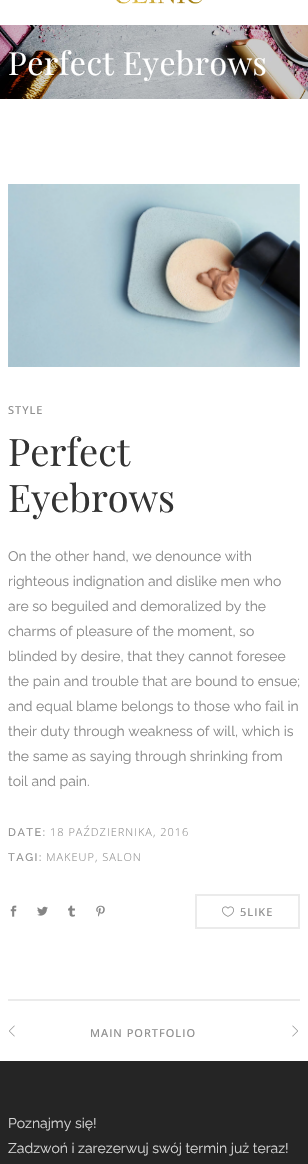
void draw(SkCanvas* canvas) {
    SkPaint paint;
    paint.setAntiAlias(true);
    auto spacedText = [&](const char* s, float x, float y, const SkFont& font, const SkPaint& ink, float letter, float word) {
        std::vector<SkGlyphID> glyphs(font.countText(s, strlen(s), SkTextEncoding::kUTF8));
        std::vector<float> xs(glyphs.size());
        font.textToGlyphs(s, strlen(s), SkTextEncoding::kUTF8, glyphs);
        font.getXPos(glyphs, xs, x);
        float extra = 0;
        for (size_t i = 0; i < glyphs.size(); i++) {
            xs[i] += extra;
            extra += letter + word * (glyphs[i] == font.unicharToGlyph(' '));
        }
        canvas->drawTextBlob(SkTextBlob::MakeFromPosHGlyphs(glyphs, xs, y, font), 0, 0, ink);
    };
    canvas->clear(0xFFFFFFFF);
    canvas->drawImageRect(SkImages::DeferredFromEncodedData(SkData::MakeFromFileName("img1.png")), SkRect::MakeXYWH(116, 0, 86, 4), SkSamplingOptions());
    canvas->drawImageRect(SkImages::DeferredFromEncodedData(SkData::MakeFromFileName("img2.png")), SkRect::MakeXYWH(0, 25, 308, 74), SkSamplingOptions());
    SkFont font1(fontMgr->matchFamilyStyle("Playfair Display", SkFontStyle::Normal()), 32);
    font1.setSubpixel(true);
    paint.setColor(0xFFFFFFFF);
    spacedText("Perfect Eyebrows", 8, 75, font1, paint, 0.5f, 0);
    canvas->drawImageRect(SkImages::DeferredFromEncodedData(SkData::MakeFromFileName("img3.png")), SkRect::MakeXYWH(8, 184, 292, 183), SkSamplingOptions());
    SkFont font2(fontMgr->matchFamilyStyle("Open Sans", SkFontStyle(500, SkFontStyle::kNormal_Width, SkFontStyle::kUpright_Slant)), 11);
    font2.setSubpixel(true);
    paint.setColor(0xFF909090);
    spacedText("STYLE", 8, 414, font2, paint, 1, 0);
    SkFont font3(fontMgr->matchFamilyStyle("Playfair Display", SkFontStyle::Normal()), 38);
    font3.setSubpixel(true);
    paint.setColor(0xFF333333);
    canvas->drawString("Perfect", 8, 466, font3, paint);
    canvas->drawString("Eyebrows", 8, 512, font3, paint);
    SkFont font4(fontMgr->matchFamilyStyle("Raleway", SkFontStyle::Normal()), 14);
    font4.setSubpixel(true);
    paint.setColor(0xFF898989);
    canvas->drawString("On the other hand, we denounce with", 8, 561, font4, paint);
    canvas->drawString("righteous indignation and dislike men who", 8, 586, font4, paint);
    canvas->drawString("are so beguiled and demoralized by the", 8, 611, font4, paint);
    canvas->drawString("charms of pleasure of the moment, so", 8, 636, font4, paint);
    canvas->drawString("blinded by desire, that they cannot foresee", 8, 661, font4, paint);
    canvas->drawString("the pain and trouble that are bound to ensue;", 8, 686, font4, paint);
    canvas->drawString("and equal blame belongs to those who fail in", 8, 711, font4, paint);
    canvas->drawString("their duty through weakness of will, which is", 8, 736, font4, paint);
    canvas->drawString("the same as saying through shrinking from", 8, 761, font4, paint);
    canvas->drawString("toil and pain.", 8, 786, font4, paint);
    SkFont font5(fontMgr->matchFamilyStyle("Raleway", SkFontStyle(500, SkFontStyle::kNormal_Width, SkFontStyle::kUpright_Slant)), 11);
    font5.setSubpixel(true);
    paint.setColor(0xFF909090);
    spacedText("DATE:", 8, 836, font5, paint, 1.5f, 0);
    SkFont font6(fontMgr->matchFamilyStyle("Open Sans", SkFontStyle(300, SkFontStyle::kNormal_Width, SkFontStyle::kUpright_Slant)), 11);
    font6.setSubpixel(true);
    spacedText("18 PAŹDZIERNIKA, 2016", 50, 836, font6, paint, 1, 0);
    spacedText("TAGI:", 8, 861, font5, paint, 1.5f, 0);
    spacedText("MAKEUP, SALON", 46, 861, font6, paint, 1, 0);
    canvas->drawImageRect(SkImages::DeferredFromEncodedData(SkData::MakeFromFileName("img4.png")), SkRect::MakeXYWH(10, 905, 7, 12), SkSamplingOptions());
    canvas->drawImageRect(SkImages::DeferredFromEncodedData(SkData::MakeFromFileName("img5.png")), SkRect::MakeXYWH(37, 906, 11, 10), SkSamplingOptions());
    canvas->drawImageRect(SkImages::DeferredFromEncodedData(SkData::MakeFromFileName("img6.png")), SkRect::MakeXYWH(68, 905, 7, 12), SkSamplingOptions());
    canvas->drawImageRect(SkImages::DeferredFromEncodedData(SkData::MakeFromFileName("img7.png")), SkRect::MakeXYWH(96, 905, 9, 12), SkSamplingOptions());
    paint.setStyle(SkPaint::kStroke_Style);
    paint.setStrokeWidth(2);
    paint.setColor(0xFFEBEBEB);
    canvas->drawRect(SkRect::MakeXYWH(196, 895, 103, 33), paint);
    canvas->drawImageRect(SkImages::DeferredFromEncodedData(SkData::MakeFromFileName("img8.png")), SkRect::MakeXYWH(222, 906, 12, 11), SkSamplingOptions());
    paint.setStyle(SkPaint::kFill_Style);
    paint.setColor(0xFF909090);
    spacedText("5LIKE", 240, 916, font2, paint, 1, 0);
    paint.setColor(0xFFEBEBEB);
    canvas->drawRect(SkRect::MakeXYWH(8, 999, 292, 2), paint);
    canvas->drawImageRect(SkImages::DeferredFromEncodedData(SkData::MakeFromFileName("img9.png")), SkRect::MakeXYWH(9, 1025, 6, 12), SkSamplingOptions());
    paint.setColor(0xFF909090);
    spacedText("MAIN PORTFOLIO", 90, 1037, font2, paint, 1, 0);
    canvas->drawImageRect(SkImages::DeferredFromEncodedData(SkData::MakeFromFileName("img10.png")), SkRect::MakeXYWH(292, 1025, 6, 12), SkSamplingOptions());
    paint.setColor(0xFF252525);
    canvas->drawRect(SkRect::MakeXYWH(0, 1061, 308, 103), paint);
    paint.setColor(0xFFD4D4D4);
    canvas->drawString("Poznajmy się!", 8, 1128, font4, paint);
    canvas->drawString("Zadzwoń i zarezerwuj swój termin już teraz!", 8, 1153, font4, paint);
}
